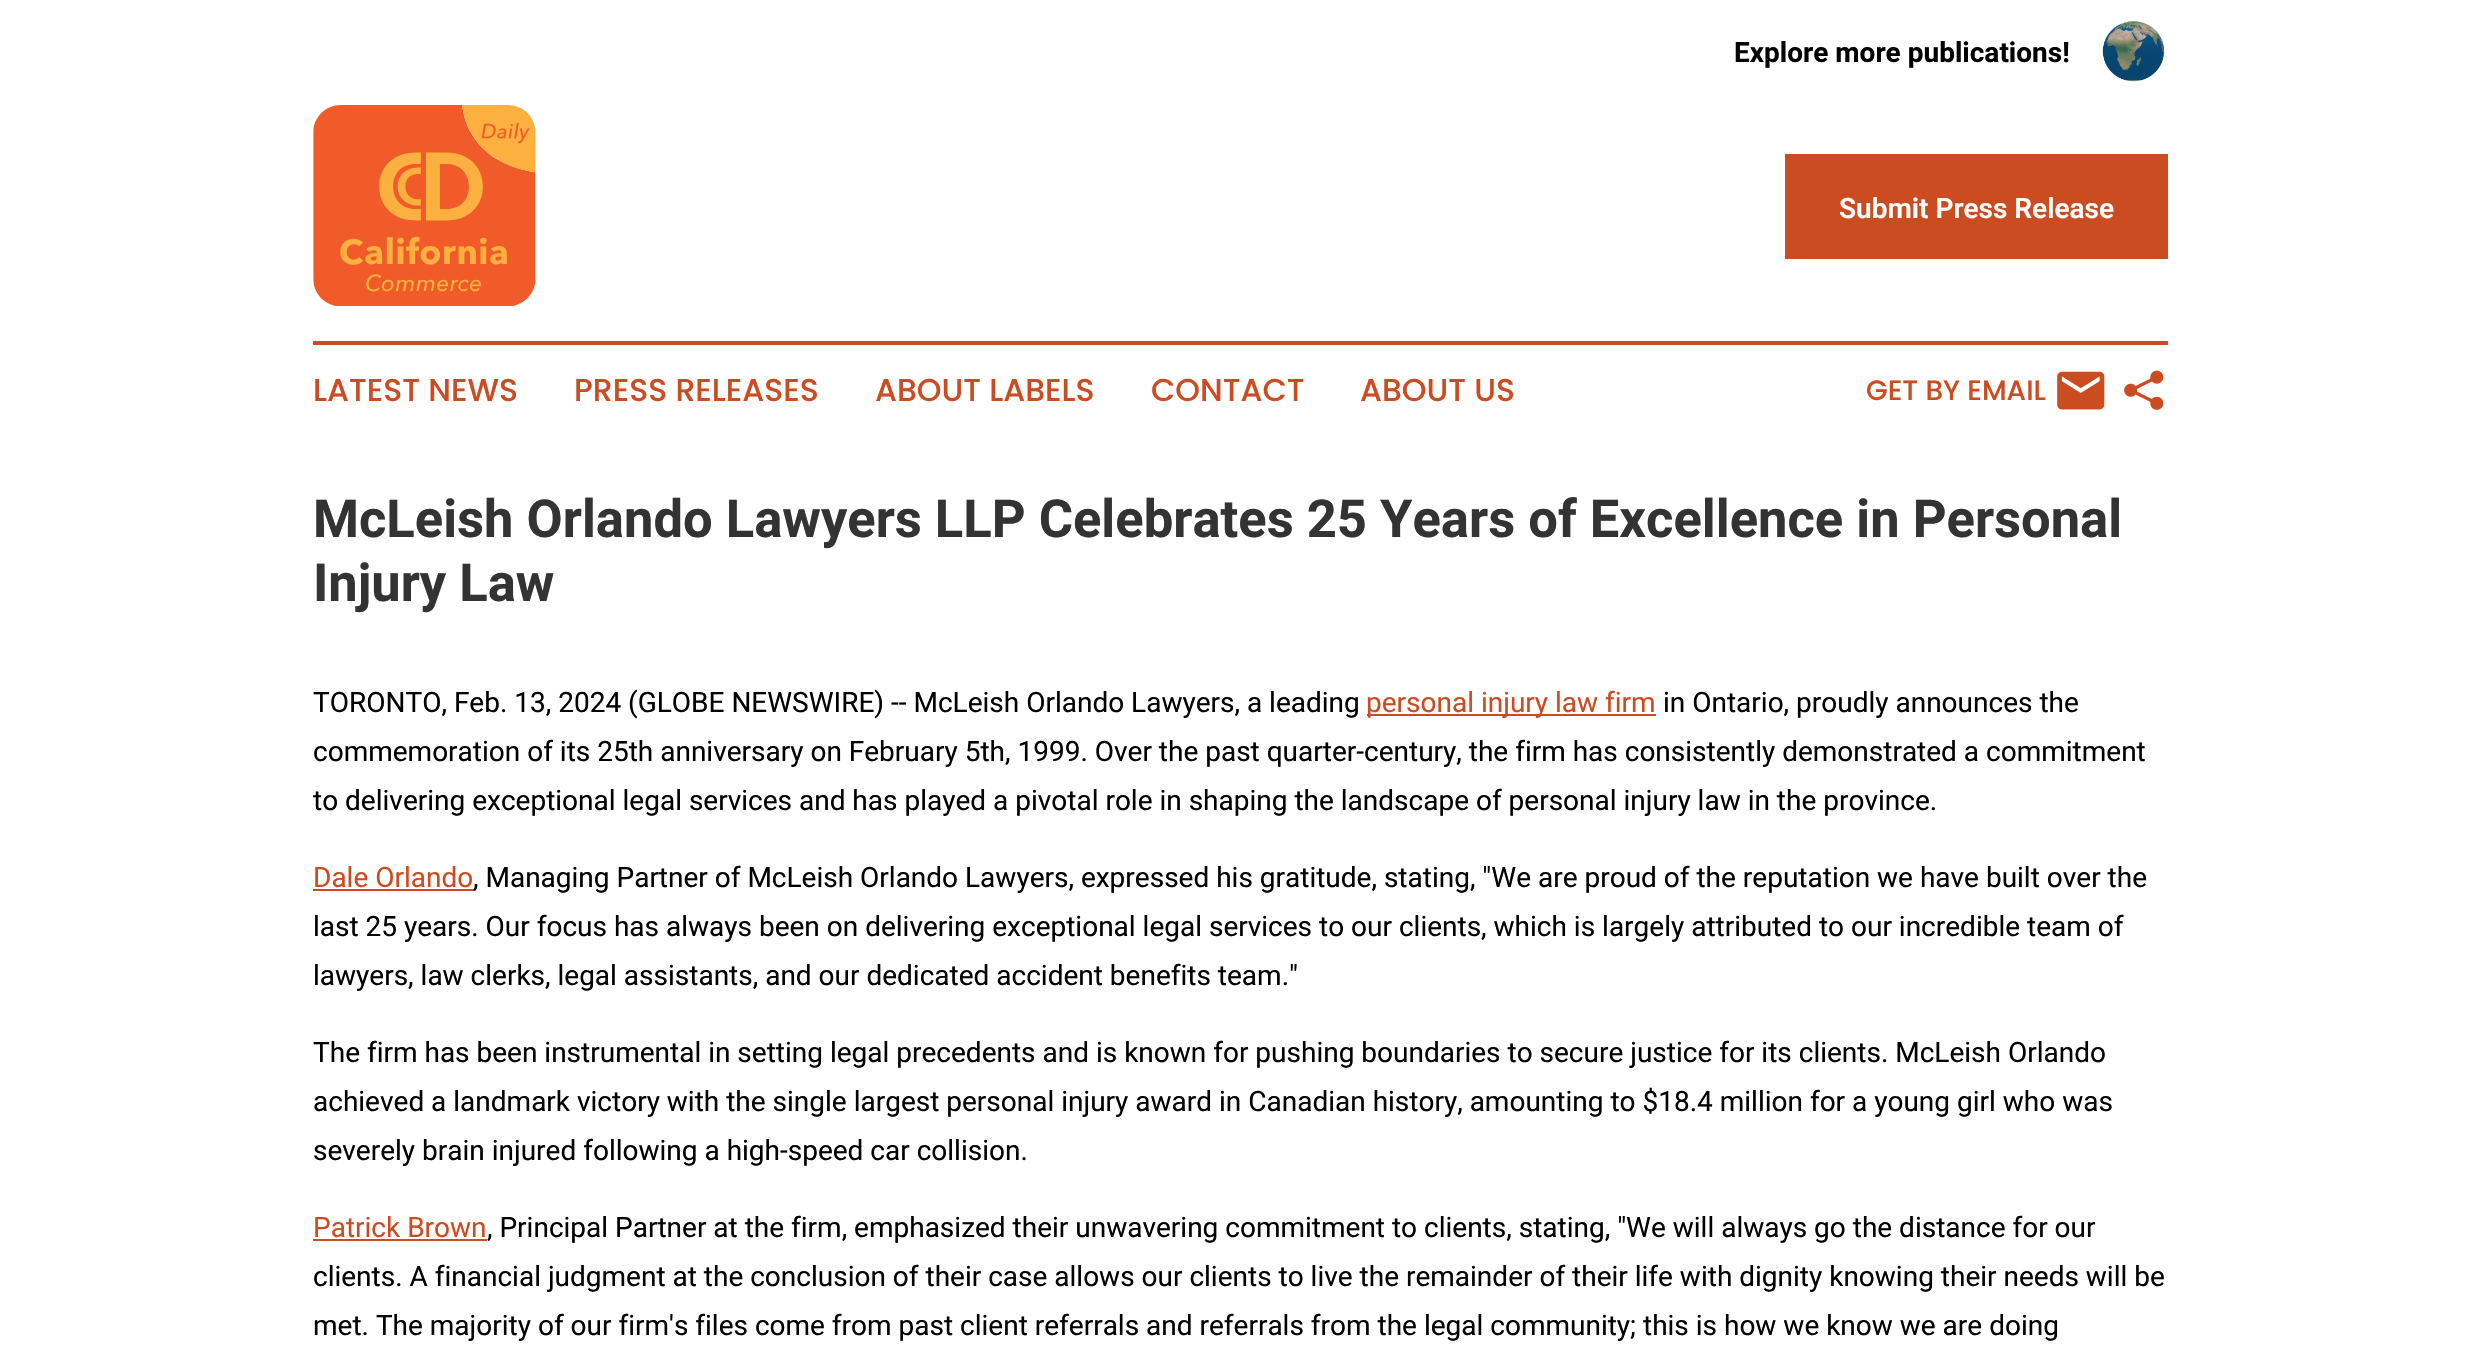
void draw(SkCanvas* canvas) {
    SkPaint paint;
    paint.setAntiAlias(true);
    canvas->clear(0xFFFFFFFF);
    SkFont font1(fontMgr->matchFamilyStyle("Roboto", SkFontStyle::Bold()), 28);
    font1.setSubpixel(true);
    paint.setColor(0xFF000000);
    canvas->drawString("Explore more publications!", 1734, 62, font1, paint);
    canvas->drawImageRect(SkImages::DeferredFromEncodedData(SkData::MakeFromFileName("img1.png")), SkRect::MakeXYWH(2102, 21, 63, 61), SkSamplingOptions());
    canvas->drawImageRect(SkImages::DeferredFromEncodedData(SkData::MakeFromFileName("img2.png")), SkRect::MakeXYWH(313, 105, 223, 201), SkSamplingOptions());
    paint.setColor(0xFFCC4C22);
    canvas->drawRect(SkRect::MakeXYWH(1785, 154, 383, 105), paint);
    SkFont font2(fontMgr->matchFamilyStyle("Roboto", SkFontStyle(600, SkFontStyle::kNormal_Width, SkFontStyle::kUpright_Slant)), 28);
    font2.setSubpixel(true);
    paint.setColor(0xFFFFFFFF);
    canvas->drawString("Submit Press Release", 1839, 218, font2, paint);
    paint.setColor(0xFFCC4C22);
    canvas->drawRect(SkRect::MakeXYWH(313, 341, 1855, 4), paint);
    SkFont font3(fontMgr->matchFamilyStyle("Poppins", SkFontStyle(500, SkFontStyle::kNormal_Width, SkFontStyle::kUpright_Slant)), 31.5f);
    font3.setSubpixel(true);
    canvas->drawString("LATEST NEWS", 313, 401, font3, paint);
    canvas->drawString("PRESS RELEASES", 574, 401, font3, paint);
    canvas->drawString("ABOUT LABELS", 875, 401, font3, paint);
    canvas->drawString("CONTACT", 1151, 401, font3, paint);
    canvas->drawString("ABOUT US", 1360, 401, font3, paint);
    SkFont font4(fontMgr->matchFamilyStyle("Poppins", SkFontStyle(500, SkFontStyle::kNormal_Width, SkFontStyle::kUpright_Slant)), 28);
    font4.setSubpixel(true);
    canvas->drawString("GET BY EMAIL", 1866, 400, font4, paint);
    canvas->drawImageRect(SkImages::DeferredFromEncodedData(SkData::MakeFromFileName("img3.png")), SkRect::MakeXYWH(2057, 371, 48, 39), SkSamplingOptions());
    canvas->drawImageRect(SkImages::DeferredFromEncodedData(SkData::MakeFromFileName("img4.png")), SkRect::MakeXYWH(2124, 370, 40, 40), SkSamplingOptions());
    SkFont font5(fontMgr->matchFamilyStyle("Roboto", SkFontStyle::Bold()), 52.5f);
    font5.setSubpixel(true);
    paint.setColor(0xFF333333);
    canvas->drawString("McLeish Orlando Lawyers LLP Celebrates 25 Years of Excellence in Personal", 313, 537, font5, paint);
    canvas->drawString("Injury Law", 313, 601, font5, paint);
    SkFont font6(fontMgr->matchFamilyStyle("Roboto", SkFontStyle::Normal()), 28);
    font6.setSubpixel(true);
    paint.setColor(0xFF000000);
    canvas->drawString("TORONTO, Feb. 13, 2024 (GLOBE NEWSWIRE) -- McLeish Orlando Lawyers, a leading", 313, 712, font6, paint);
    paint.setColor(0xFFCC4C22);
    canvas->drawRect(SkRect::MakeXYWH(1367, 714, 289, 2), paint);
    canvas->drawString("personal injury law firm", 1366, 712, font6, paint);
    paint.setColor(0xFF000000);
    canvas->drawString("in Ontario, proudly announces the", 1663, 712, font6, paint);
    canvas->drawString("commemoration of its 25th anniversary on February 5th, 1999. Over the past quarter-century, the firm has consistently demonstrated a commitment", 313, 761, font6, paint);
    canvas->drawString("to delivering exceptional legal services and has played a pivotal role in shaping the landscape of personal injury law in the province.", 313, 810, font6, paint);
    paint.setColor(0xFFCC4C22);
    canvas->drawString("Dale Orlando", 313, 887, font6, paint);
    canvas->drawRect(SkRect::MakeXYWH(313, 889, 161, 2), paint);
    paint.setColor(0xFF000000);
    canvas->drawString(", Managing Partner of McLeish Orlando Lawyers, expressed his gratitude, stating, \"We are proud of the reputation we have built over the", 473, 887, font6, paint);
    canvas->drawString("last 25 years. Our focus has always been on delivering exceptional legal services to our clients, which is largely attributed to our incredible team of", 313, 936, font6, paint);
    canvas->drawString("lawyers, law clerks, legal assistants, and our dedicated accident benefits team.\"", 313, 985, font6, paint);
    canvas->drawString("The firm has been instrumental in setting legal precedents and is known for pushing boundaries to secure justice for its clients. McLeish Orlando", 313, 1062, font6, paint);
    canvas->drawString("achieved a landmark victory with the single largest personal injury award in Canadian history, amounting to $18.4 million for a young girl who was", 313, 1111, font6, paint);
    canvas->drawString("severely brain injured following a high-speed car collision.", 313, 1160, font6, paint);
    paint.setColor(0xFFCC4C22);
    canvas->drawString("Patrick Brown", 313, 1237, font6, paint);
    canvas->drawRect(SkRect::MakeXYWH(313, 1239, 174, 2), paint);
    paint.setColor(0xFF000000);
    canvas->drawString(", Principal Partner at the firm, emphasized their unwavering commitment to clients, stating, \"We will always go the distance for our", 487, 1237, font6, paint);
    canvas->drawString("clients. A financial judgment at the conclusion of their case allows our clients to live the remainder of their life with dignity knowing their needs will be", 313, 1286, font6, paint);
    canvas->drawString("met. The majority of our firm's files come from past client referrals and referrals from the legal community; this is how we know we are doing", 313, 1335, font6, paint);
}
